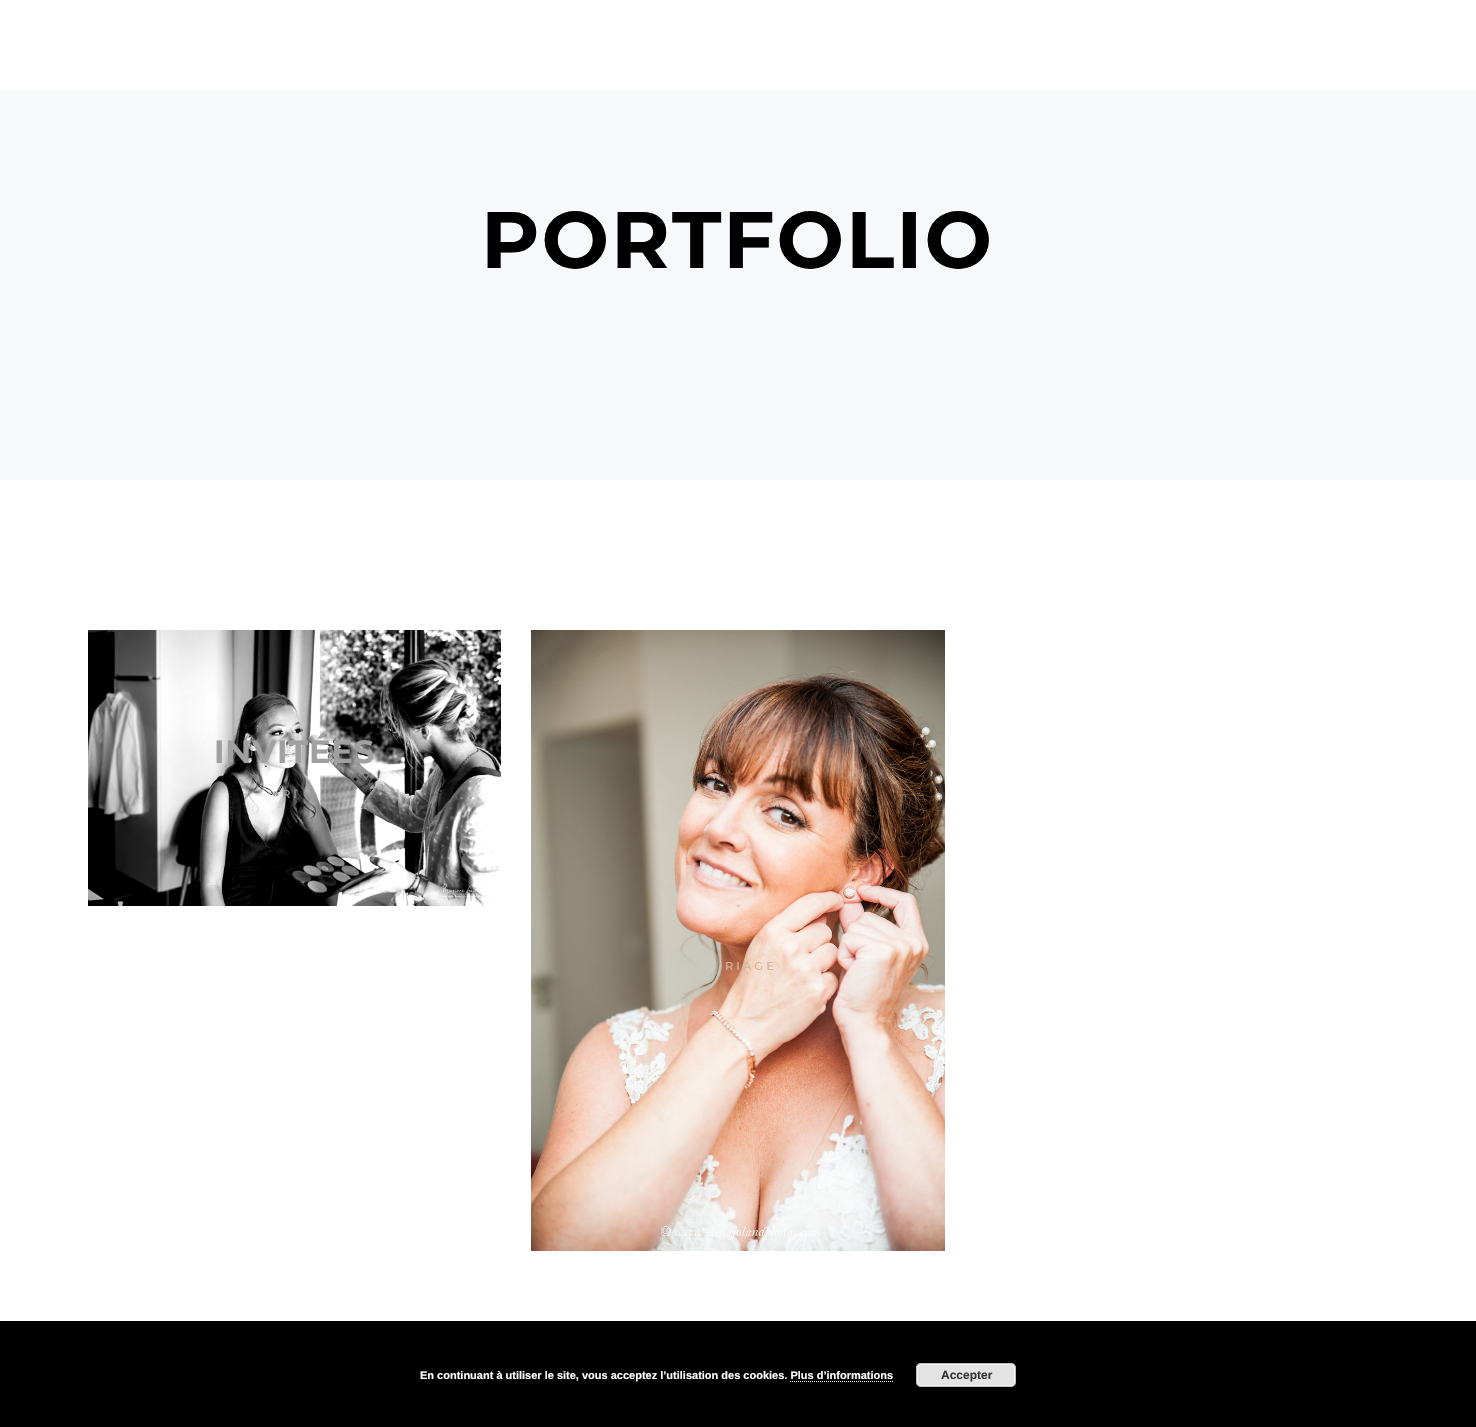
void draw(SkCanvas* canvas) {
    SkPaint paint;
    paint.setAntiAlias(true);
    auto spacedText = [&](const char* s, float x, float y, const SkFont& font, const SkPaint& ink, float letter, float word) {
        std::vector<SkGlyphID> glyphs(font.countText(s, strlen(s), SkTextEncoding::kUTF8));
        std::vector<float> xs(glyphs.size());
        font.textToGlyphs(s, strlen(s), SkTextEncoding::kUTF8, glyphs);
        font.getXPos(glyphs, xs, x);
        float extra = 0;
        for (size_t i = 0; i < glyphs.size(); i++) {
            xs[i] += extra;
            extra += letter + word * (glyphs[i] == font.unicharToGlyph(' '));
        }
        canvas->drawTextBlob(SkTextBlob::MakeFromPosHGlyphs(glyphs, xs, y, font), 0, 0, ink);
    };
    canvas->clear(0xFFFFFFFF);
    paint.setColor(0xFFF7F8F9);
    canvas->drawRect(SkRect::MakeXYWH(0, 90, 1476, 390), paint);
    SkFont font1(fontMgr->matchFamilyStyle("Montserrat", SkFontStyle::Bold()), 80);
    font1.setSubpixel(true);
    paint.setColor(0xFF000000);
    spacedText("PORTFOLIO", 481, 268, font1, paint, 2, 0);
    canvas->drawImageRect(SkImages::DeferredFromEncodedData(SkData::MakeFromFileName("img1.png")), SkRect::MakeXYWH(88, 630, 413, 276), SkSamplingOptions());
    SkFont font2(fontMgr->matchFamilyStyle("Montserrat", SkFontStyle::Bold()), 32.25f);
    font2.setSubpixel(true);
    paint.setColor(0xFFA0A0A0);
    spacedText("INVITÉES", 214, 763, font2, paint, 0.75f, 0);
    SkFont font3(fontMgr->matchFamilyStyle("Montserrat", SkFontStyle(500, SkFontStyle::kNormal_Width, SkFontStyle::kUpright_Slant)), 11.5f);
    font3.setSubpixel(true);
    spacedText("RI", 282, 798, font3, paint, 3, 0);
    canvas->drawImageRect(SkImages::DeferredFromEncodedData(SkData::MakeFromFileName("img2.png")), SkRect::MakeXYWH(531, 630, 414, 621), SkSamplingOptions());
    paint.setColor(0xFFD4B5A2);
    spacedText("RIAGE", 725, 970, font3, paint, 3, 0);
    paint.setColor(0xFF000000);
    canvas->drawRect(SkRect::MakeXYWH(0, 1321, 1476, 106), paint);
    SkFont font4(fontMgr->matchFamilyStyle("Liberation Sans", SkFontStyle::Bold()), 11);
    font4.setSubpixel(true);
    paint.setColor(0xFFFFFFFF);
    canvas->drawString("En continuant à utiliser le site, vous acceptez l’utilisation des cookies. Plus d’informations", 420, 1379, font4, paint);
    paint.setColor(0xFFE3E3E3);
    canvas->drawRoundRect(SkRect::MakeXYWH(916, 1363, 100, 24), 5, 5, paint);
    paint.setStyle(SkPaint::kStroke_Style);
    paint.setStrokeWidth(1);
    paint.setColor(0xFFF6F6F6);
    canvas->drawRoundRect(SkRect::MakeXYWH(917.5f, 1364.5f, 97, 21), 3.5f, 3.5f, paint);
    paint.setColor(0xFFBBBBBB);
    canvas->drawRoundRect(SkRect::MakeXYWH(916.5f, 1363.5f, 99, 23), 4.5f, 4.5f, paint);
    SkFont font5(fontMgr->matchFamilyStyle("Liberation Sans", SkFontStyle::Bold()), 12);
    font5.setSubpixel(true);
    paint.setStyle(SkPaint::kFill_Style);
    paint.setColor(0xFF333333);
    canvas->drawString("Accepter", 941, 1379, font5, paint);
    paint.setStyle(SkPaint::kStroke_Style);
    paint.setColor(0xFFFFFFFF);
    paint.setPathEffect(SkDashPathEffect::Make({{1, 1}}, 0));
    canvas->drawPath(SkPathBuilder().moveTo(790, 1381.5f).lineTo(893, 1381.5f).detach(), paint);
    paint.setPathEffect(nullptr);
}
